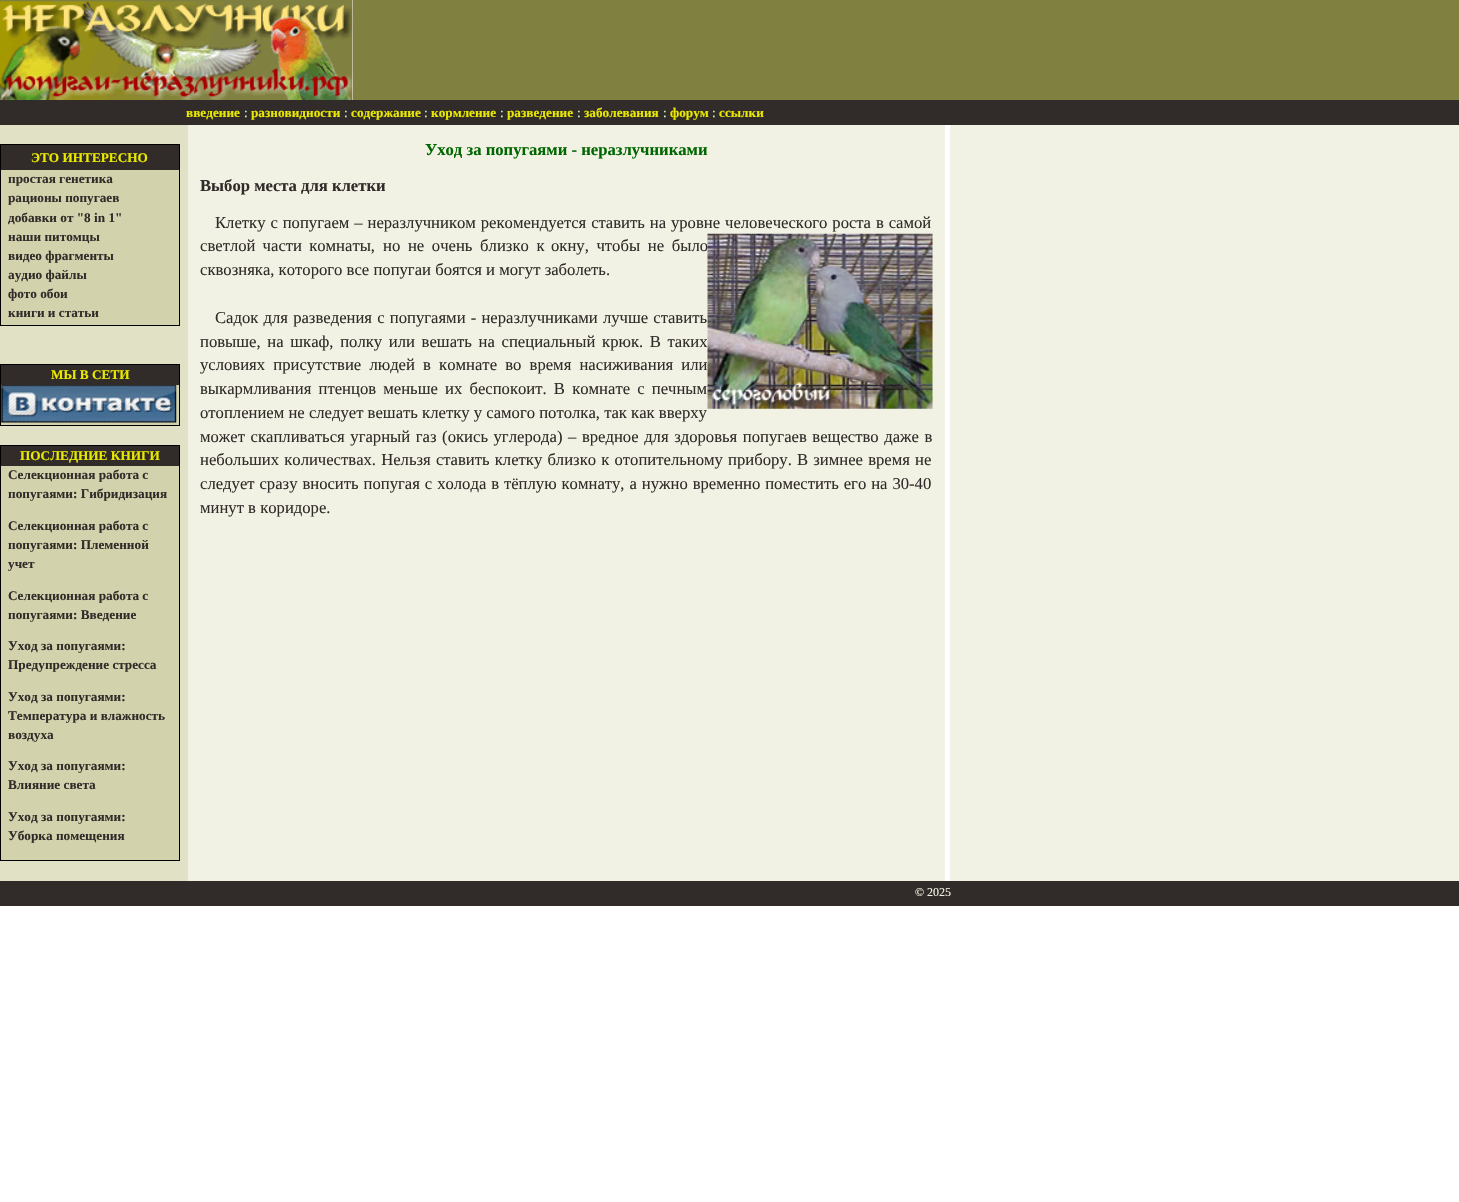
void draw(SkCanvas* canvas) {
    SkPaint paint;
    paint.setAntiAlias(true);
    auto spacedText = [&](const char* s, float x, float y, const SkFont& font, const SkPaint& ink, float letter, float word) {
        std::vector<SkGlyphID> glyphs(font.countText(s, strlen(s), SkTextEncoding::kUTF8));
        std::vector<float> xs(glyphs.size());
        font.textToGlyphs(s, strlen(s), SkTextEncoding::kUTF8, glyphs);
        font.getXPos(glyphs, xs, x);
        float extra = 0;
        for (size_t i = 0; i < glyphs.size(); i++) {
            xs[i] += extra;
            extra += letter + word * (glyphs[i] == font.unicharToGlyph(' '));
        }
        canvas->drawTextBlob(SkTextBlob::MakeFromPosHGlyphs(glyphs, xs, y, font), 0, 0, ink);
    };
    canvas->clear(0xFFFFFFFF);
    canvas->drawImageRect(SkImages::DeferredFromEncodedData(SkData::MakeFromFileName("img1.png")), SkRect::MakeXYWH(0, 0, 353, 100), SkSamplingOptions());
    paint.setColor(0xFF808040);
    canvas->drawRect(SkRect::MakeXYWH(353, 0, 1106, 100), paint);
    paint.setColor(0xFF312C29);
    canvas->drawRect(SkRect::MakeXYWH(0, 100, 1459, 25), paint);
    SkFont font1(fontMgr->matchFamilyStyle("Liberation Serif", SkFontStyle::Bold()), 13.25f);
    font1.setSubpixel(true);
    paint.setColor(0xFFE8E800);
    canvas->drawString("введение", 186, 117, font1, paint);
    SkFont font2(fontMgr->matchFamilyStyle("Liberation Serif", SkFontStyle::Normal()), 13.25f);
    font2.setSubpixel(true);
    paint.setColor(0xFFCCFFCC);
    canvas->drawString(":", 244, 117, font2, paint);
    paint.setColor(0xFFE8E800);
    canvas->drawString("разновидности", 251, 117, font1, paint);
    paint.setColor(0xFFCCFFCC);
    canvas->drawString(":", 344, 117, font2, paint);
    paint.setColor(0xFFE8E800);
    canvas->drawString("содержание", 351, 117, font1, paint);
    paint.setColor(0xFFCCFFCC);
    canvas->drawString(":", 424, 117, font2, paint);
    paint.setColor(0xFFE8E800);
    canvas->drawString("кормление", 431, 117, font1, paint);
    paint.setColor(0xFFCCFFCC);
    canvas->drawString(":", 500, 117, font2, paint);
    paint.setColor(0xFFE8E800);
    canvas->drawString("разведение", 507, 117, font1, paint);
    paint.setColor(0xFFCCFFCC);
    canvas->drawString(":", 577, 117, font2, paint);
    paint.setColor(0xFFE8E800);
    canvas->drawString("заболевания", 584, 117, font1, paint);
    paint.setColor(0xFFCCFFCC);
    canvas->drawString(":", 663, 117, font2, paint);
    paint.setColor(0xFFE8E800);
    canvas->drawString("форум", 670, 117, font1, paint);
    paint.setColor(0xFFCCFFCC);
    canvas->drawString(":", 712, 117, font2, paint);
    paint.setColor(0xFFE8E800);
    canvas->drawString("ссылки", 719, 117, font1, paint);
    paint.setColor(0xFFE1E1C6);
    canvas->drawRect(SkRect::MakeXYWH(0, 125, 188, 756), paint);
    paint.setColor(0xFF000000);
    canvas->drawRect(SkRect::MakeXYWH(0, 144, 180, 1), paint);
    canvas->drawRect(SkRect::MakeXYWH(179, 144, 1, 182), paint);
    canvas->drawRect(SkRect::MakeXYWH(0, 325, 180, 1), paint);
    canvas->drawRect(SkRect::MakeXYWH(0, 144, 1, 182), paint);
    paint.setColor(0xFF312C29);
    canvas->drawRect(SkRect::MakeXYWH(1, 145, 178, 25), paint);
    paint.setColor(0xFFE8E800);
    canvas->drawString("ЭТО ИНТЕРЕСНО", 31, 162, font1, paint);
    paint.setColor(0xFFD2D2AC);
    canvas->drawRect(SkRect::MakeXYWH(1, 170, 178, 155), paint);
    paint.setColor(0xFF312C29);
    canvas->drawString("простая генетика", 8, 183, font1, paint);
    canvas->drawString("рационы попугаев", 8, 202, font1, paint);
    canvas->drawString("добавки от \"8 in 1\"", 8, 222, font1, paint);
    canvas->drawString("наши питомцы", 8, 241, font1, paint);
    canvas->drawString("видео фрагменты", 8, 260, font1, paint);
    canvas->drawString("аудио файлы", 8, 279, font1, paint);
    canvas->drawString("фото обои", 8, 298, font1, paint);
    canvas->drawString("книги и статьи", 8, 317, font1, paint);
    paint.setColor(0xFF000000);
    canvas->drawRect(SkRect::MakeXYWH(0, 364, 180, 1), paint);
    canvas->drawRect(SkRect::MakeXYWH(179, 364, 1, 62), paint);
    canvas->drawRect(SkRect::MakeXYWH(0, 425, 180, 1), paint);
    canvas->drawRect(SkRect::MakeXYWH(0, 364, 1, 62), paint);
    paint.setColor(0xFF312C29);
    canvas->drawRect(SkRect::MakeXYWH(1, 365, 178, 20), paint);
    paint.setColor(0xFFE8E800);
    canvas->drawString("МЫ В СЕТИ", 51, 379, font1, paint);
    paint.setColor(0xFFD2D2AC);
    canvas->drawRect(SkRect::MakeXYWH(1, 385, 178, 40), paint);
    canvas->drawImageRect(SkImages::DeferredFromEncodedData(SkData::MakeFromFileName("img2.png")), SkRect::MakeXYWH(1, 385, 176, 38), SkSamplingOptions());
    paint.setColor(0xFF000000);
    canvas->drawRect(SkRect::MakeXYWH(0, 445, 180, 1), paint);
    canvas->drawRect(SkRect::MakeXYWH(179, 445, 1, 416), paint);
    canvas->drawRect(SkRect::MakeXYWH(0, 860, 180, 1), paint);
    canvas->drawRect(SkRect::MakeXYWH(0, 445, 1, 416), paint);
    paint.setColor(0xFF312C29);
    canvas->drawRect(SkRect::MakeXYWH(1, 446, 178, 20), paint);
    paint.setColor(0xFFE8E800);
    canvas->drawString("ПОСЛЕДНИЕ КНИГИ", 20, 460, font1, paint);
    paint.setColor(0xFFD2D2AC);
    canvas->drawRect(SkRect::MakeXYWH(1, 466, 178, 394), paint);
    paint.setColor(0xFF312C29);
    canvas->drawString("Селекционная работа с", 8, 479, font1, paint);
    canvas->drawString("попугаями: Гибридизация", 8, 498, font1, paint);
    canvas->drawString("Селекционная работа с", 8, 530, font1, paint);
    canvas->drawString("попугаями: Племенной", 8, 549, font1, paint);
    canvas->drawString("учет", 8, 568, font1, paint);
    canvas->drawString("Селекционная работа с", 8, 600, font1, paint);
    canvas->drawString("попугаями: Введение", 8, 619, font1, paint);
    canvas->drawString("Уход за попугаями:", 8, 650, font1, paint);
    canvas->drawString("Предупреждение стресса", 8, 669, font1, paint);
    canvas->drawString("Уход за попугаями:", 8, 701, font1, paint);
    canvas->drawString("Температура и влажность", 8, 720, font1, paint);
    canvas->drawString("воздуха", 8, 739, font1, paint);
    canvas->drawString("Уход за попугаями:", 8, 770, font1, paint);
    canvas->drawString("Влияние света", 8, 789, font1, paint);
    canvas->drawString("Уход за попугаями:", 8, 821, font1, paint);
    canvas->drawString("Уборка помещения", 8, 840, font1, paint);
    paint.setColor(0xFFF1F1E4);
    canvas->drawRect(SkRect::MakeXYWH(188, 125, 757, 756), paint);
    SkFont font3(fontMgr->matchFamilyStyle("Liberation Serif", SkFontStyle::Bold()), 16.65f);
    font3.setSubpixel(true);
    paint.setColor(0xFF006600);
    canvas->drawString("Уход за попугаями - неразлучниками", 425, 155, font3, paint);
    paint.setColor(0xFF312C29);
    canvas->drawString("Выбор места для клетки", 200, 191, font3, paint);
    SkFont font4(fontMgr->matchFamilyStyle("Liberation Serif", SkFontStyle::Normal()), 16.65f);
    font4.setSubpixel(true);
    spacedText("Клетку с попугаем – неразлучником рекомендуется ставить на уровне человеческого роста в самой", 215, 228, font4, paint, 0, 0.75f);
    spacedText("светлой части комнаты,", 200, 251, font4, paint, 0, 3);
    spacedText("но не очень близко к", 383, 251, font4, paint, 0, 3.5f);
    spacedText("окну, чтобы не было", 551, 251, font4, paint, 0, 3.5f);
    canvas->drawImageRect(SkImages::DeferredFromEncodedData(SkData::MakeFromFileName("img3.png")), SkRect::MakeXYWH(707, 233, 226, 176), SkSamplingOptions());
    canvas->drawString("сквозняка, которого все попугаи боятся и могут заболеть.", 200, 275, font4, paint);
    spacedText("Садок для разведения с попугаями - неразлучниками лучше ставить", 215, 323, font4, paint, 0, 1);
    spacedText("повыше, на шкаф, полку или вешать на специальный крюк. В таких", 200, 347, font4, paint, 0, 2.5f);
    spacedText("условиях присутствие людей в комнате во время насиживания или", 200, 370, font4, paint, 0, 4);
    spacedText("выкармливания птенцов меньше их беспокоит. В комнате с печным", 200, 394, font4, paint, 0, 3);
    canvas->drawString("отоплением не следует вешать клетку у самого потолка, так как вверху", 200, 418, font4, paint);
    spacedText("может скапливаться угарный газ (окись углерода) – вредное для здоровья попугаев вещество даже в", 200, 442, font4, paint, 0, 1.4f);
    spacedText("небольших количествах. Нельзя ставить клетку близко к отопительному прибору. В зимнее время не", 200, 465, font4, paint, 0, 1);
    spacedText("следует сразу вносить попугая с холода в тёплую комнату, а нужно временно поместить его на 30-40", 200, 489, font4, paint, 0, 0.75f);
    canvas->drawString("минут в коридоре.", 200, 513, font4, paint);
    canvas->drawRect(SkRect::MakeXYWH(0, 881, 1459, 25), paint);
    SkFont font5(fontMgr->matchFamilyStyle("Liberation Serif", SkFontStyle::Normal()), 12);
    font5.setSubpixel(true);
    paint.setColor(0xFFF1F1E4);
    canvas->drawString("© 2025", 915, 896, font5, paint);
    canvas->drawRect(SkRect::MakeXYWH(950, 125, 509, 756), paint);
}
